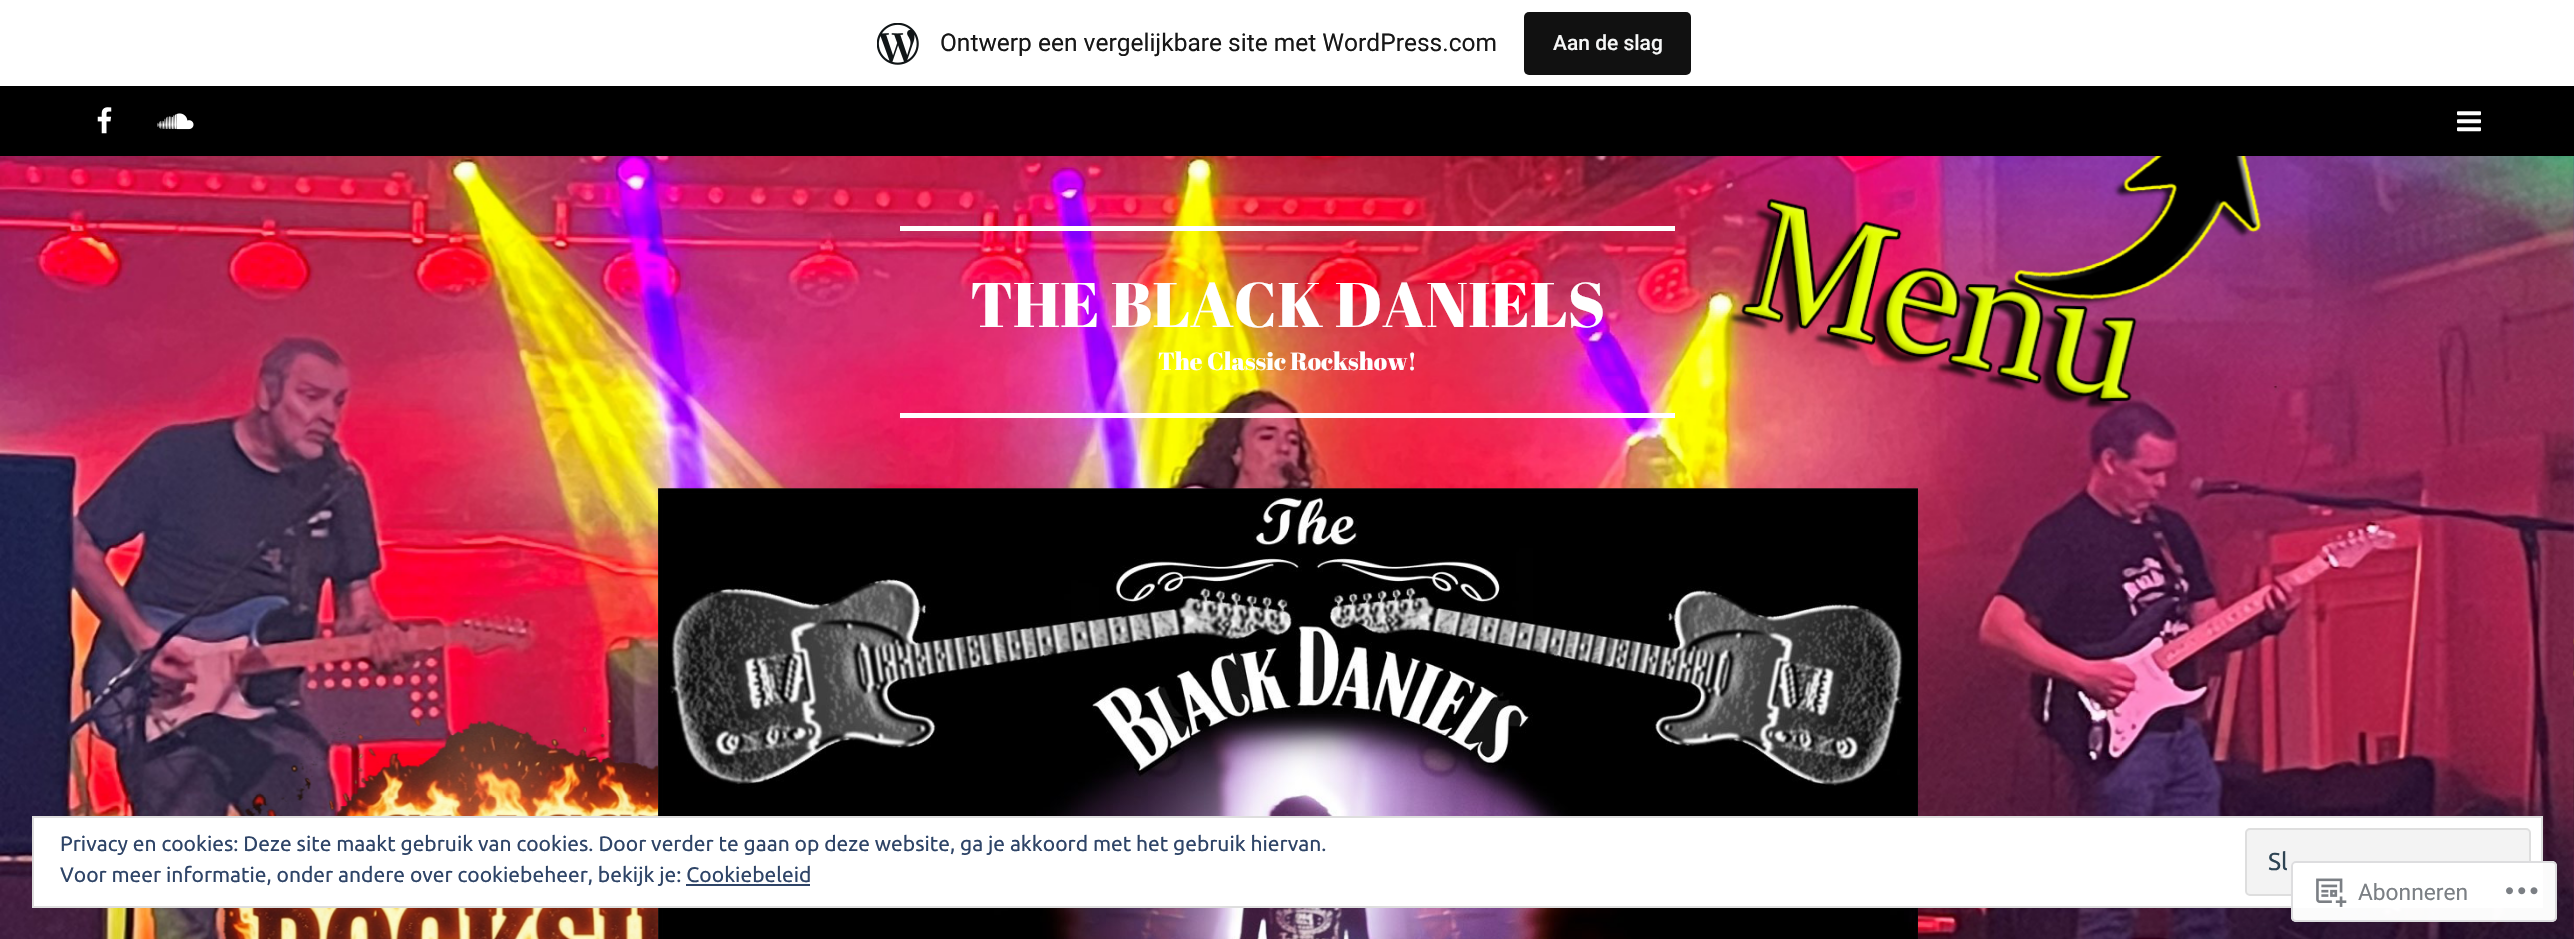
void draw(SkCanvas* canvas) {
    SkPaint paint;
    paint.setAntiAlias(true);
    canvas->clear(0xFFFFFFFF);
    canvas->drawImageRect(SkImages::DeferredFromEncodedData(SkData::MakeFromFileName("img1.png")), SkRect::MakeXYWH(2573, 156, 1, 783), SkSamplingOptions());
    paint.setColor(0xFF000000);
    canvas->drawRect(SkRect::MakeXYWH(0, 86, 2574, 70), paint);
    paint.setColor(0x0D000000);
    paint.setMaskFilter(SkMaskFilter::MakeBlur(kNormal_SkBlurStyle, 2));
    canvas->drawRect(SkRect::MakeXYWH(0, 2, 2574, 86), paint);
    paint.setMaskFilter(nullptr);
    paint.setColor(0xFFFFFFFF);
    canvas->drawRect(SkRect::MakeXYWH(0, 0, 2574, 86), paint);
    canvas->drawImageRect(SkImages::DeferredFromEncodedData(SkData::MakeFromFileName("img2.png")), SkRect::MakeXYWH(877, 23, 42, 42), SkSamplingOptions());
    SkFont font1(fontMgr->matchFamilyStyle("Roboto", SkFontStyle::Normal()), 24.5f);
    font1.setSubpixel(true);
    paint.setColor(0xFF171717);
    canvas->drawString("Ontwerp een vergelijkbare site met WordPress.com", 940, 51, font1, paint);
    paint.setColor(0xFF111111);
    canvas->drawRoundRect(SkRect::MakeXYWH(1524, 12, 167, 63), 5, 5, paint);
    SkFont font2(fontMgr->matchFamilyStyle("Roboto", SkFontStyle(500, SkFontStyle::kNormal_Width, SkFontStyle::kUpright_Slant)), 21);
    font2.setSubpixel(true);
    paint.setColor(0xFFF6F7F7);
    canvas->drawString("Aan de slag", 1553, 50, font2, paint);
    canvas->drawImageRect(SkImages::DeferredFromEncodedData(SkData::MakeFromFileName("img3.png")), SkRect::MakeXYWH(0, 156, 2574, 783), SkSamplingOptions());
    canvas->drawImageRect(SkImages::DeferredFromEncodedData(SkData::MakeFromFileName("img4.png")), SkRect::MakeXYWH(97, 107, 15, 27), SkSamplingOptions());
    canvas->drawImageRect(SkImages::DeferredFromEncodedData(SkData::MakeFromFileName("img5.png")), SkRect::MakeXYWH(157, 113, 37, 17), SkSamplingOptions());
    canvas->drawImageRect(SkImages::DeferredFromEncodedData(SkData::MakeFromFileName("img6.png")), SkRect::MakeXYWH(2457, 111, 24, 21), SkSamplingOptions());
    paint.setColor(0xFFFFFFFF);
    canvas->drawRect(SkRect::MakeXYWH(900, 226, 775, 5), paint);
    canvas->drawRect(SkRect::MakeXYWH(900, 413, 775, 5), paint);
    SkFont font3(fontMgr->matchFamilyStyle("Abril Fatface", SkFontStyle::Normal()), 63);
    font3.setSubpixel(true);
    canvas->drawString("THE BLACK DANIELS", 970, 327, font3, paint);
    SkFont font4(fontMgr->matchFamilyStyle("Abril Fatface", SkFontStyle::Normal()), 24.5f);
    font4.setSubpixel(true);
    canvas->drawString("The Classic Rockshow!", 1158, 370, font4, paint);
    canvas->drawImageRect(SkImages::DeferredFromEncodedData(SkData::MakeFromFileName("img7.png")), SkRect::MakeXYWH(658, 488, 1260, 451), SkSamplingOptions());
    canvas->drawRect(SkRect::MakeXYWH(33, 817, 2509, 90), paint);
    paint.setStyle(SkPaint::kStroke_Style);
    paint.setStrokeWidth(2);
    paint.setColor(0xFFDEDEDE);
    canvas->drawRect(SkRect::MakeXYWH(33, 817, 2509, 90), paint);
    SkFont font5(fontMgr->matchFamilyStyle("Ubuntu", SkFontStyle::Normal()), 21);
    font5.setSubpixel(true);
    paint.setStyle(SkPaint::kFill_Style);
    paint.setColor(0xFF2E4467);
    canvas->drawString("Privacy en cookies: Deze site maakt gebruik van cookies. Door verder te gaan op deze website, ga je akkoord met het gebruik hiervan.", 60, 851, font5, paint);
    paint.setColor(0xFFF3F3F3);
    canvas->drawRoundRect(SkRect::MakeXYWH(2246, 829, 284, 66), 4, 4, paint);
    paint.setStyle(SkPaint::kStroke_Style);
    paint.setColor(0xFFDEDEDE);
    canvas->drawRoundRect(SkRect::MakeXYWH(2246, 829, 284, 66), 4, 4, paint);
    SkFont font6(fontMgr->matchFamilyStyle("Ubuntu", SkFontStyle::Normal()), 24.5f);
    font6.setSubpixel(true);
    paint.setStyle(SkPaint::kFill_Style);
    paint.setColor(0xFF2E4453);
    canvas->drawString("Sl", 2268, 870, font6, paint);
    paint.setColor(0xFF2E4467);
    canvas->drawString("Voor meer informatie, onder andere over cookiebeheer, bekijk je: Cookiebeleid", 60, 882, font5, paint);
    canvas->drawRect(SkRect::MakeXYWH(686, 884, 124, 2), paint);
    paint.setColor(0xFAFFFFFF);
    canvas->drawRoundRect(SkRect::MakeXYWH(2291, 861, 266, 61), 5, 5, paint);
    paint.setStyle(SkPaint::kStroke_Style);
    paint.setColor(0xFADCDCDE);
    canvas->drawRoundRect(SkRect::MakeXYWH(2292, 862, 264, 59), 4, 4, paint);
    canvas->drawImageRect(SkImages::DeferredFromEncodedData(SkData::MakeFromFileName("img8.png")), SkRect::MakeXYWH(2316, 878, 31, 29), SkSamplingOptions());
    SkFont font7(fontMgr->matchFamilyStyle("Roboto", SkFontStyle::Normal()), 22.75f);
    font7.setSubpixel(true);
    paint.setStyle(SkPaint::kFill_Style);
    paint.setColor(0xFF7B7F84);
    canvas->drawString("Abonneren", 2358, 900, font7, paint);
    canvas->drawImageRect(SkImages::DeferredFromEncodedData(SkData::MakeFromFileName("img9.png")), SkRect::MakeXYWH(2506, 887, 32, 8), SkSamplingOptions());
}
